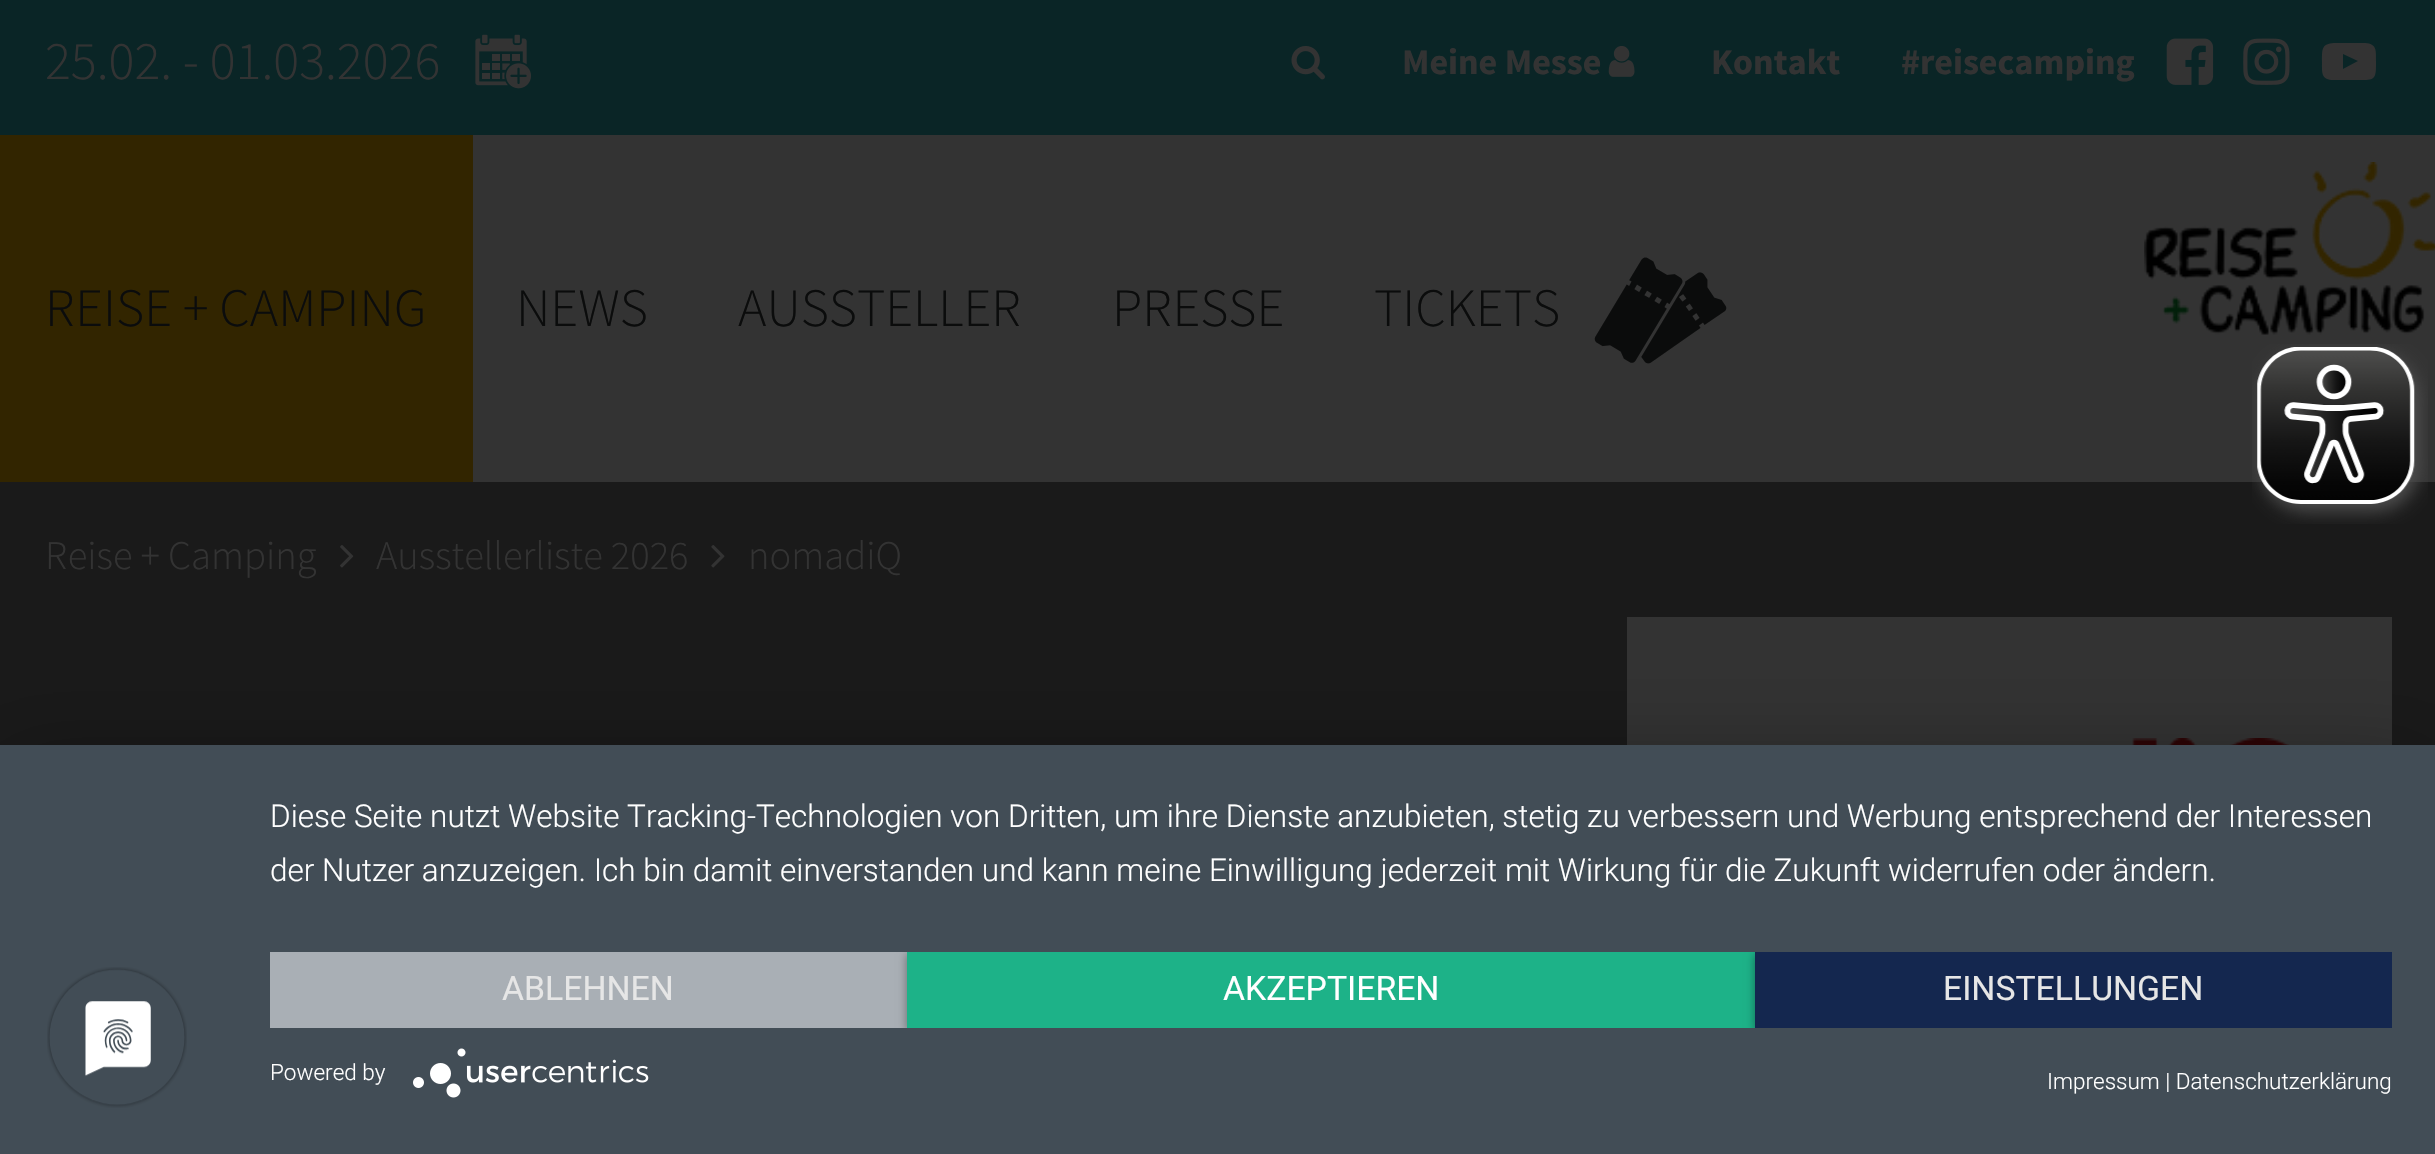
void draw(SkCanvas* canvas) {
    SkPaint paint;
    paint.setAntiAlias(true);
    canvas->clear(0xFF333333);
    paint.setColor(0xFF0A2526);
    canvas->drawRect(SkRect::MakeXYWH(0, 0, 2435, 135), paint);
    SkFont font1(fontMgr->matchFamilyStyle("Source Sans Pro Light", SkFontStyle(300, SkFontStyle::kNormal_Width, SkFontStyle::kUpright_Slant)), 54);
    font1.setSubpixel(true);
    paint.setColor(0xFF333333);
    canvas->drawString("25.02. - 01.03.2026", 45, 79, font1, paint);
    canvas->drawImageRect(SkImages::DeferredFromEncodedData(SkData::MakeFromFileName("img1.png")), SkRect::MakeXYWH(475, 34, 56, 55), SkSamplingOptions());
    canvas->drawImageRect(SkImages::DeferredFromEncodedData(SkData::MakeFromFileName("img2.png")), SkRect::MakeXYWH(1291, 46, 34, 34), SkSamplingOptions());
    SkFont font2(fontMgr->matchFamilyStyle("Source Sans Pro", SkFontStyle::Bold()), 36);
    font2.setSubpixel(true);
    canvas->drawString("Meine Messe", 1402, 74, font2, paint);
    canvas->drawImageRect(SkImages::DeferredFromEncodedData(SkData::MakeFromFileName("img3.png")), SkRect::MakeXYWH(1608, 46, 27, 31), SkSamplingOptions());
    canvas->drawString("Kontakt", 1711, 74, font2, paint);
    canvas->drawString("#reisecamping", 1901, 74, font2, paint);
    canvas->drawImageRect(SkImages::DeferredFromEncodedData(SkData::MakeFromFileName("img4.png")), SkRect::MakeXYWH(2166, 38, 48, 47), SkSamplingOptions());
    canvas->drawImageRect(SkImages::DeferredFromEncodedData(SkData::MakeFromFileName("img5.png")), SkRect::MakeXYWH(2243, 38, 47, 47), SkSamplingOptions());
    canvas->drawPath(SkPathBuilder().moveTo(2343, 69).lineTo(2358, 61).lineTo(2343, 54).close().moveTo(2349, 43).lineTo(2365, 43).cubicTo(2377, 44, 2376, 50, 2376, 62).cubicTo(2376, 76, 2376, 80, 2364, 80).lineTo(2334, 80).cubicTo(2321, 80, 2322, 73, 2322, 62).cubicTo(2322, 48, 2322, 44, 2334, 43).close().detach(), paint);
    paint.setColor(0xFF322500);
    canvas->drawRect(SkRect::MakeXYWH(0, 135, 473, 347), paint);
    paint.setColor(0xFF0B0C0C);
    canvas->drawString("REISE + CAMPING", 45, 326, font1, paint);
    canvas->drawString("NEWS", 516, 326, font1, paint);
    canvas->drawString("AUSSTELLER", 738, 326, font1, paint);
    canvas->drawString("PRESSE", 1112, 326, font1, paint);
    canvas->drawString("TICKETS", 1374, 326, font1, paint);
    canvas->drawImageRect(SkImages::DeferredFromEncodedData(SkData::MakeFromFileName("img6.png")), SkRect::MakeXYWH(1594, 257, 133, 107), SkSamplingOptions());
    canvas->drawImageRect(SkImages::DeferredFromEncodedData(SkData::MakeFromFileName("img7.png")), SkRect::MakeXYWH(2144, 162, 291, 173), SkSamplingOptions());
    paint.setColor(0xFF1A1A1A);
    canvas->drawRect(SkRect::MakeXYWH(0, 482, 2435, 263), paint);
    SkFont font3(fontMgr->matchFamilyStyle("Source Sans Pro Light", SkFontStyle(300, SkFontStyle::kNormal_Width, SkFontStyle::kUpright_Slant)), 40.5f);
    font3.setSubpixel(true);
    paint.setColor(0xFF333333);
    canvas->drawString("Reise + Camping", 45, 569, font3, paint);
    canvas->drawImageRect(SkImages::DeferredFromEncodedData(SkData::MakeFromFileName("img8.png")), SkRect::MakeXYWH(340, 545, 14, 23), SkSamplingOptions());
    canvas->drawString("Ausstellerliste 2026", 376, 569, font3, paint);
    canvas->drawImageRect(SkImages::DeferredFromEncodedData(SkData::MakeFromFileName("img9.png")), SkRect::MakeXYWH(711, 545, 14, 23), SkSamplingOptions());
    canvas->drawString("nomadiQ", 748, 569, font3, paint);
    canvas->drawImageRect(SkImages::DeferredFromEncodedData(SkData::MakeFromFileName("img10.png")), SkRect::MakeXYWH(2252, 344, 176, 180), SkSamplingOptions());
    canvas->drawRect(SkRect::MakeXYWH(1627, 617, 765, 128), paint);
    canvas->drawImageRect(SkImages::DeferredFromEncodedData(SkData::MakeFromFileName("img11.png")), SkRect::MakeXYWH(2132, 738, 158, 7), SkSamplingOptions());
    paint.setColor(0x4D000000);
    paint.setMaskFilter(SkMaskFilter::MakeBlur(kNormal_SkBlurStyle, 40.5f));
    canvas->drawRect(SkRect::MakeXYWH(0, 758, 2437, 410), paint);
    paint.setMaskFilter(nullptr);
    paint.setColor(0xFF424D56);
    canvas->drawRect(SkRect::MakeXYWH(0, 745, 2435, 409), paint);
    canvas->drawImageRect(SkImages::DeferredFromEncodedData(SkData::MakeFromFileName("img12.png")), SkRect::MakeXYWH(47, 967, 140, 141), SkSamplingOptions());
    SkFont font4(fontMgr->matchFamilyStyle("Roboto", SkFontStyle(300, SkFontStyle::kNormal_Width, SkFontStyle::kUpright_Slant)), 31.5f);
    font4.setSubpixel(true);
    paint.setColor(0xFFFFFFFF);
    canvas->drawString("Diese Seite nutzt Website Tracking-Technologien von Dritten, um ihre Dienste anzubieten, stetig zu verbessern und Werbung entsprechend der Interessen", 270, 827, font4, paint);
    canvas->drawString("der Nutzer anzuzeigen. Ich bin damit einverstanden und kann meine Einwilligung jederzeit mit Wirkung für die Zukunft widerrufen oder ändern.", 270, 881, font4, paint);
    paint.setColor(0xFFA9AFB5);
    canvas->drawRect(SkRect::MakeXYWH(270, 952, 637, 76), paint);
    SkFont font5(fontMgr->matchFamilyStyle("Roboto", SkFontStyle::Normal()), 33.75f);
    font5.setSubpixel(true);
    paint.setColor(0xFFE6E6E6);
    canvas->drawString("ABLEHNEN", 502, 1000, font5, paint);
    canvas->save();
    canvas->clipRect(SkRect::MakeXYWH(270, 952, 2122, 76));
    paint.setColor(0x66000000);
    paint.setMaskFilter(SkMaskFilter::MakeBlur(kNormal_SkBlurStyle, 4.5f));
    canvas->drawRect(SkRect::MakeXYWH(907, 954, 848, 77), paint);
    paint.setMaskFilter(nullptr);
    canvas->restore();
    paint.setColor(0xFF1DB288);
    canvas->drawRect(SkRect::MakeXYWH(907, 952, 848, 76), paint);
    paint.setColor(0xFFFFFFFF);
    canvas->drawString("AKZEPTIEREN", 1223, 1000, font5, paint);
    canvas->save();
    canvas->clipRect(SkRect::MakeXYWH(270, 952, 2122, 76));
    paint.setColor(0x66000000);
    paint.setMaskFilter(SkMaskFilter::MakeBlur(kNormal_SkBlurStyle, 4.5f));
    canvas->drawRect(SkRect::MakeXYWH(1755, 954, 637, 77), paint);
    paint.setMaskFilter(nullptr);
    canvas->restore();
    paint.setColor(0xFF14274F);
    canvas->drawRect(SkRect::MakeXYWH(1755, 952, 637, 76), paint);
    paint.setColor(0xFFE6E6E6);
    canvas->drawString("EINSTELLUNGEN", 1943, 1000, font5, paint);
    SkFont font6(fontMgr->matchFamilyStyle("Roboto", SkFontStyle(300, SkFontStyle::kNormal_Width, SkFontStyle::kUpright_Slant)), 22.5f);
    font6.setSubpixel(true);
    paint.setColor(0xFFFFFFFF);
    canvas->drawString("Powered by", 270, 1080, font6, paint);
    canvas->drawImageRect(SkImages::DeferredFromEncodedData(SkData::MakeFromFileName("img13.png")), SkRect::MakeXYWH(413, 1048, 236, 50), SkSamplingOptions());
    canvas->drawString("Impressum | Datenschutzerklärung", 2047, 1089, font6, paint);
}
